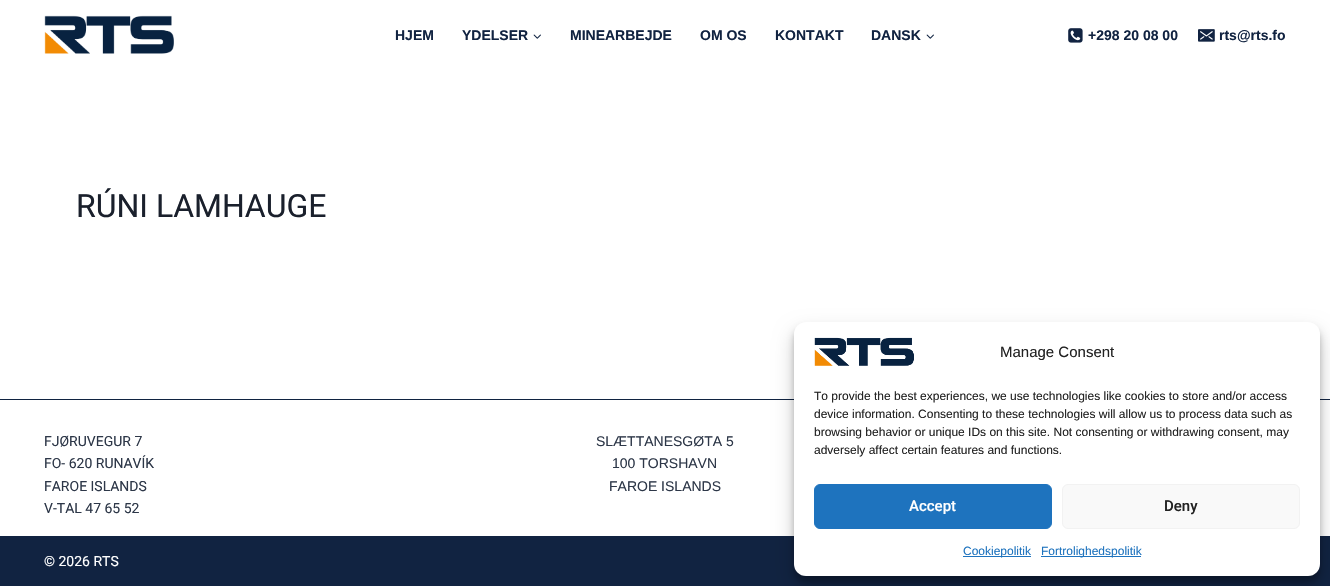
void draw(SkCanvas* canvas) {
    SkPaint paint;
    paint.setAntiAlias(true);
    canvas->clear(0xFFFFFFFF);
    canvas->drawImageRect(SkImages::DeferredFromEncodedData(SkData::MakeFromFileName("img1.png")), SkRect::MakeXYWH(44, 15, 130, 39), SkSamplingOptions());
    SkFont font1(fontMgr->matchFamilyStyle("Liberation Sans", SkFontStyle::Bold()), 14);
    font1.setSubpixel(true);
    paint.setColor(0xFF112341);
    canvas->drawString("HJEM", 395, 40, font1, paint);
    canvas->drawString("YDELSER", 462, 40, font1, paint);
    canvas->drawImageRect(SkImages::DeferredFromEncodedData(SkData::MakeFromFileName("img2.png")), SkRect::MakeXYWH(533, 34, 8, 5), SkSamplingOptions());
    canvas->drawString("MINEARBEJDE", 570, 40, font1, paint);
    canvas->drawString("OM OS", 700, 40, font1, paint);
    canvas->drawString("KONTAKT", 775, 40, font1, paint);
    canvas->drawString("DANSK", 871, 40, font1, paint);
    canvas->drawImageRect(SkImages::DeferredFromEncodedData(SkData::MakeFromFileName("img2.png")), SkRect::MakeXYWH(926, 34, 8, 5), SkSamplingOptions());
    canvas->drawImageRect(SkImages::DeferredFromEncodedData(SkData::MakeFromFileName("img3.png")), SkRect::MakeXYWH(1068, 28, 15, 15), SkSamplingOptions());
    canvas->drawString("+298 20 08 00", 1088, 40, font1, paint);
    canvas->drawImageRect(SkImages::DeferredFromEncodedData(SkData::MakeFromFileName("img4.png")), SkRect::MakeXYWH(1198, 29, 17, 13), SkSamplingOptions());
    canvas->drawString("rts@rts.fo", 1219, 40, font1, paint);
    SkFont font2(fontMgr->matchFamilyStyle("Roboto", SkFontStyle::Normal()), 32);
    font2.setSubpixel(true);
    paint.setColor(0xFF1A202C);
    canvas->drawString("RÚNI LAMHAUGE", 76, 217, font2, paint);
    paint.setColor(0xFF102341);
    canvas->drawRect(SkRect::MakeXYWH(0, 399, 1330, 1), paint);
    SkFont font3(fontMgr->matchFamilyStyle("Roboto", SkFontStyle::Normal()), 14);
    font3.setSubpixel(true);
    paint.setColor(0xFF2D3748);
    canvas->drawString("FJØRUVEGUR 7", 44, 446, font3, paint);
    canvas->drawString("FO- 620 RUNAVÍK", 44, 468, font3, paint);
    canvas->drawString("FAROE ISLANDS", 44, 491, font3, paint);
    canvas->drawString("V-TAL 47 65 52", 44, 513, font3, paint);
    SkFont font4(fontMgr->matchFamilyStyle("Liberation Sans", SkFontStyle::Normal()), 14);
    font4.setSubpixel(true);
    canvas->drawString("SLÆTTANESGØTA 5", 596, 446, font4, paint);
    canvas->drawString("100 TORSHAVN", 612, 468, font4, paint);
    canvas->drawString("FAROE ISLANDS", 609, 491, font4, paint);
    paint.setColor(0xFF112341);
    canvas->drawRect(SkRect::MakeXYWH(0, 536, 1330, 50), paint);
    paint.setColor(0xFFFFFFFF);
    canvas->drawString("© 2026 RTS", 44, 566, font3, paint);
    paint.setColor(0x3B000000);
    paint.setMaskFilter(SkMaskFilter::MakeBlur(kNormal_SkBlurStyle, 3));
    canvas->drawRoundRect(SkRect::MakeXYWH(794, 328, 526, 254), 12, 12, paint);
    paint.setMaskFilter(nullptr);
    paint.setColor(0x30000000);
    paint.setMaskFilter(SkMaskFilter::MakeBlur(kNormal_SkBlurStyle, 10));
    canvas->drawRoundRect(SkRect::MakeXYWH(794, 332, 526, 254), 12, 12, paint);
    paint.setMaskFilter(nullptr);
    paint.setColor(0xFFFFFFFF);
    canvas->drawRoundRect(SkRect::MakeXYWH(794, 322, 526, 254), 12, 12, paint);
    canvas->drawImageRect(SkImages::DeferredFromEncodedData(SkData::MakeFromFileName("img5.png")), SkRect::MakeXYWH(814, 337, 100, 29), SkSamplingOptions());
    SkFont font5(fontMgr->matchFamilyStyle("Liberation Sans", SkFontStyle::Normal()), 15);
    font5.setSubpixel(true);
    paint.setColor(0xFF222222);
    canvas->drawString("Manage Consent", 1000, 357, font5, paint);
    SkFont font6(fontMgr->matchFamilyStyle("Liberation Sans", SkFontStyle::Normal()), 12);
    font6.setSubpixel(true);
    canvas->drawString("To provide the best experiences, we use technologies like cookies to store and/or access", 814, 400, font6, paint);
    canvas->drawString("device information. Consenting to these technologies will allow us to process data such as", 814, 418, font6, paint);
    canvas->drawString("browsing behavior or unique IDs on this site. Not consenting or withdrawing consent, may", 814, 436, font6, paint);
    canvas->drawString("adversely affect certain features and functions.", 814, 454, font6, paint);
    paint.setColor(0xFF1E73BE);
    canvas->drawRoundRect(SkRect::MakeXYWH(814.5f, 484.5f, 237, 44), 5.5f, 5.5f, paint);
    paint.setStyle(SkPaint::kStroke_Style);
    paint.setStrokeWidth(1);
    canvas->drawRoundRect(SkRect::MakeXYWH(814.5f, 484.5f, 237, 44), 5.5f, 5.5f, paint);
    SkFont font7(fontMgr->matchFamilyStyle("Roboto", SkFontStyle(500, SkFontStyle::kNormal_Width, SkFontStyle::kUpright_Slant)), 15);
    font7.setSubpixel(true);
    paint.setStyle(SkPaint::kFill_Style);
    paint.setColor(0xFFFFFFFF);
    canvas->drawString("Accept", 909, 511, font7, paint);
    paint.setColor(0xFFF9F9F9);
    canvas->drawRoundRect(SkRect::MakeXYWH(1062.5f, 484.5f, 237, 44), 5.5f, 5.5f, paint);
    paint.setStyle(SkPaint::kStroke_Style);
    paint.setColor(0xFFF2F2F2);
    canvas->drawRoundRect(SkRect::MakeXYWH(1062.5f, 484.5f, 237, 44), 5.5f, 5.5f, paint);
    paint.setStyle(SkPaint::kFill_Style);
    paint.setColor(0xFF222222);
    canvas->drawString("Deny", 1164, 511, font7, paint);
    paint.setColor(0xFF1E73BE);
    canvas->drawRect(SkRect::MakeXYWH(963, 556, 68, 1), paint);
    canvas->drawString("Cookiepolitik", 963, 555, font6, paint);
    canvas->drawRect(SkRect::MakeXYWH(1041, 556, 100, 1), paint);
    canvas->drawString("Fortrolighedspolitik", 1041, 555, font6, paint);
}
